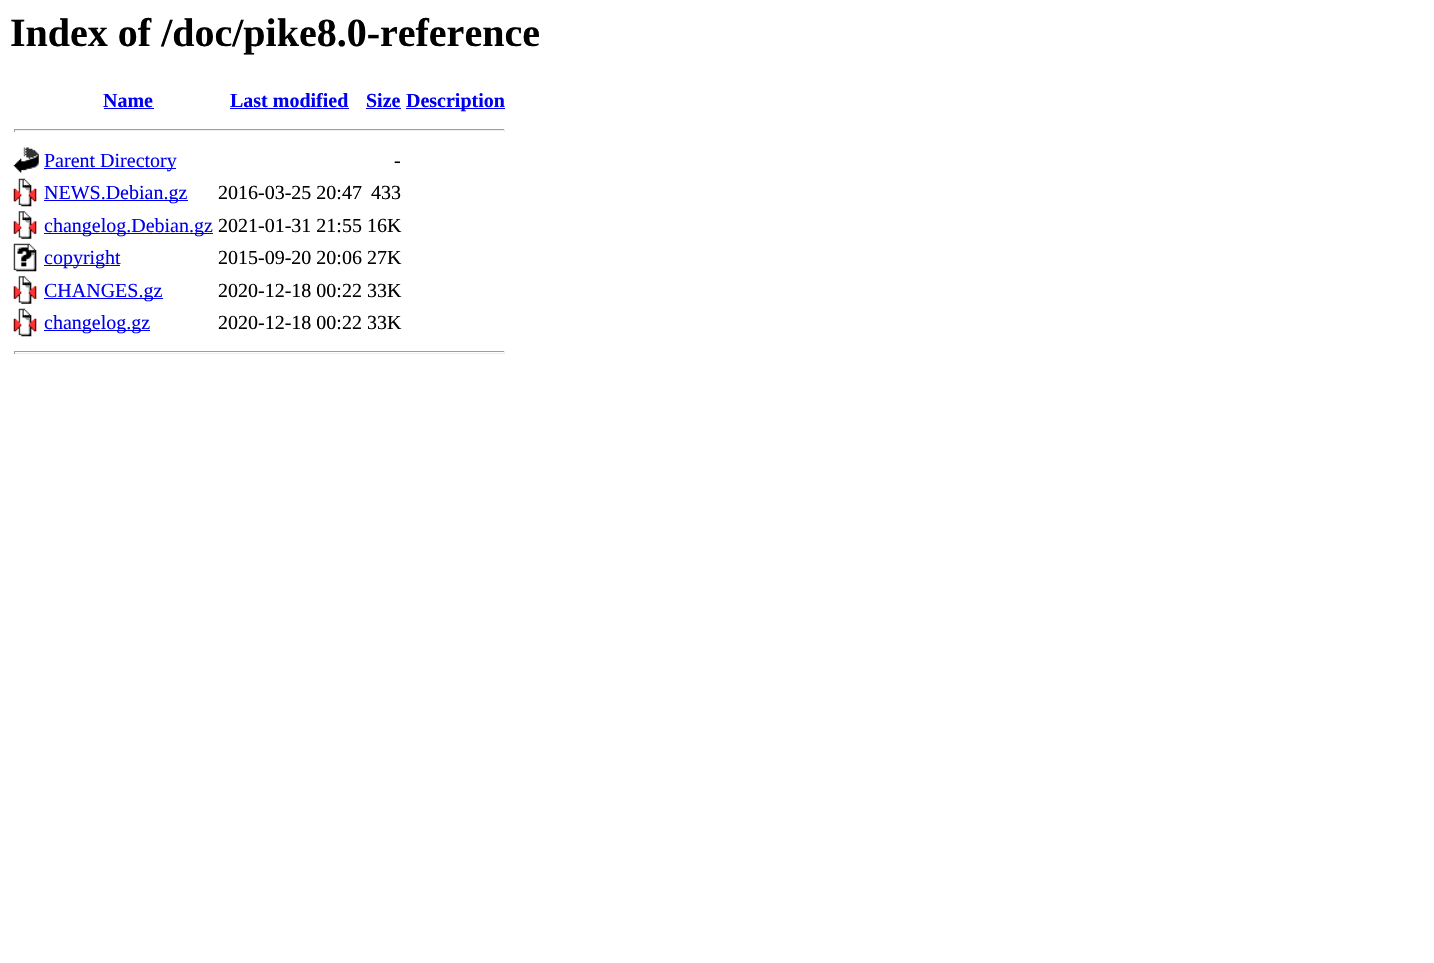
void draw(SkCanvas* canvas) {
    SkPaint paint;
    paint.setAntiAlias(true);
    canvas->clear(0xFFFFFFFF);
    SkFont font1(fontMgr->matchFamilyStyle("Liberation Serif", SkFontStyle::Bold()), 40);
    font1.setSubpixel(true);
    paint.setColor(0xFF000000);
    canvas->drawString("Index of /doc/pike8.0-reference", 10, 46, font1, paint);
    SkFont font2(fontMgr->matchFamilyStyle("Liberation Serif", SkFontStyle::Bold()), 20);
    font2.setSubpixel(true);
    paint.setColor(0xFF0000EE);
    canvas->drawString("Name", 103, 107, font2, paint);
    canvas->drawRect(SkRect::MakeXYWH(104, 108, 50, 1), paint);
    canvas->drawString("Last modified", 230, 107, font2, paint);
    canvas->drawRect(SkRect::MakeXYWH(230, 108, 119, 1), paint);
    canvas->drawString("Size", 366, 107, font2, paint);
    canvas->drawRect(SkRect::MakeXYWH(366, 108, 35, 1), paint);
    canvas->drawRect(SkRect::MakeXYWH(406, 108, 99, 1), paint);
    canvas->drawString("Description", 406, 107, font2, paint);
    paint.setColor(0xFF9F9F9F);
    canvas->drawRect(SkRect::MakeXYWH(14, 129, 491, 1), paint);
    paint.setColor(0xFFEEEEEE);
    canvas->drawRect(SkRect::MakeXYWH(504, 129, 1, 3), paint);
    canvas->drawRect(SkRect::MakeXYWH(14, 130, 491, 1), paint);
    paint.setColor(0xFF9F9F9F);
    canvas->drawRect(SkRect::MakeXYWH(14, 129, 1, 3), paint);
    canvas->drawImageRect(SkImages::DeferredFromEncodedData(SkData::MakeFromFileName("img1.png")), SkRect::MakeXYWH(13, 147, 26, 26), SkSamplingOptions());
    paint.setColor(0xFF0000EE);
    canvas->drawRect(SkRect::MakeXYWH(44, 168, 132, 1), paint);
    SkFont font3(fontMgr->matchFamilyStyle("Liberation Serif", SkFontStyle::Normal()), 20);
    font3.setSubpixel(true);
    canvas->drawString("Parent Directory", 44, 167, font3, paint);
    paint.setColor(0xFF000000);
    canvas->drawString("-", 394, 167, font3, paint);
    canvas->drawImageRect(SkImages::DeferredFromEncodedData(SkData::MakeFromFileName("img2.png")), SkRect::MakeXYWH(13, 178, 24, 29), SkSamplingOptions());
    paint.setColor(0xFF0000EE);
    canvas->drawRect(SkRect::MakeXYWH(44, 200, 144, 1), paint);
    canvas->drawString("NEWS.Debian.gz", 44, 199, font3, paint);
    paint.setColor(0xFF000000);
    canvas->drawString("2016-03-25 20:47", 218, 199, font3, paint);
    canvas->drawString("433", 371, 199, font3, paint);
    canvas->drawImageRect(SkImages::DeferredFromEncodedData(SkData::MakeFromFileName("img3.png")), SkRect::MakeXYWH(13, 211, 24, 28), SkSamplingOptions());
    paint.setColor(0xFF0000EE);
    canvas->drawRect(SkRect::MakeXYWH(44, 233, 169, 1), paint);
    canvas->drawString("changelog.Debian.gz", 44, 232, font3, paint);
    paint.setColor(0xFF000000);
    canvas->drawString("2021-01-31 21:55 16K", 218, 232, font3, paint);
    canvas->drawImageRect(SkImages::DeferredFromEncodedData(SkData::MakeFromFileName("img4.png")), SkRect::MakeXYWH(13, 243, 24, 29), SkSamplingOptions());
    paint.setColor(0xFF0000EE);
    canvas->drawRect(SkRect::MakeXYWH(44, 265, 76, 1), paint);
    canvas->drawString("copyright", 44, 264, font3, paint);
    paint.setColor(0xFF000000);
    canvas->drawString("2015-09-20 20:06 27K", 218, 264, font3, paint);
    canvas->drawImageRect(SkImages::DeferredFromEncodedData(SkData::MakeFromFileName("img5.png")), SkRect::MakeXYWH(13, 276, 24, 28), SkSamplingOptions());
    paint.setColor(0xFF0000EE);
    canvas->drawRect(SkRect::MakeXYWH(44, 298, 119, 1), paint);
    canvas->drawString("CHANGES.gz", 44, 297, font3, paint);
    paint.setColor(0xFF000000);
    canvas->drawString("2020-12-18 00:22 33K", 218, 297, font3, paint);
    canvas->drawImageRect(SkImages::DeferredFromEncodedData(SkData::MakeFromFileName("img2.png")), SkRect::MakeXYWH(13, 308, 24, 29), SkSamplingOptions());
    paint.setColor(0xFF0000EE);
    canvas->drawRect(SkRect::MakeXYWH(44, 330, 106, 1), paint);
    canvas->drawString("changelog.gz", 44, 329, font3, paint);
    paint.setColor(0xFF000000);
    canvas->drawString("2020-12-18 00:22 33K", 218, 329, font3, paint);
    paint.setColor(0xFF9F9F9F);
    canvas->drawRect(SkRect::MakeXYWH(14, 351, 491, 1), paint);
    paint.setColor(0xFFEEEEEE);
    canvas->drawRect(SkRect::MakeXYWH(504, 351, 1, 3), paint);
    canvas->drawRect(SkRect::MakeXYWH(14, 353, 491, 1), paint);
    paint.setColor(0xFF9F9F9F);
    canvas->drawRect(SkRect::MakeXYWH(14, 351, 1, 3), paint);
}
